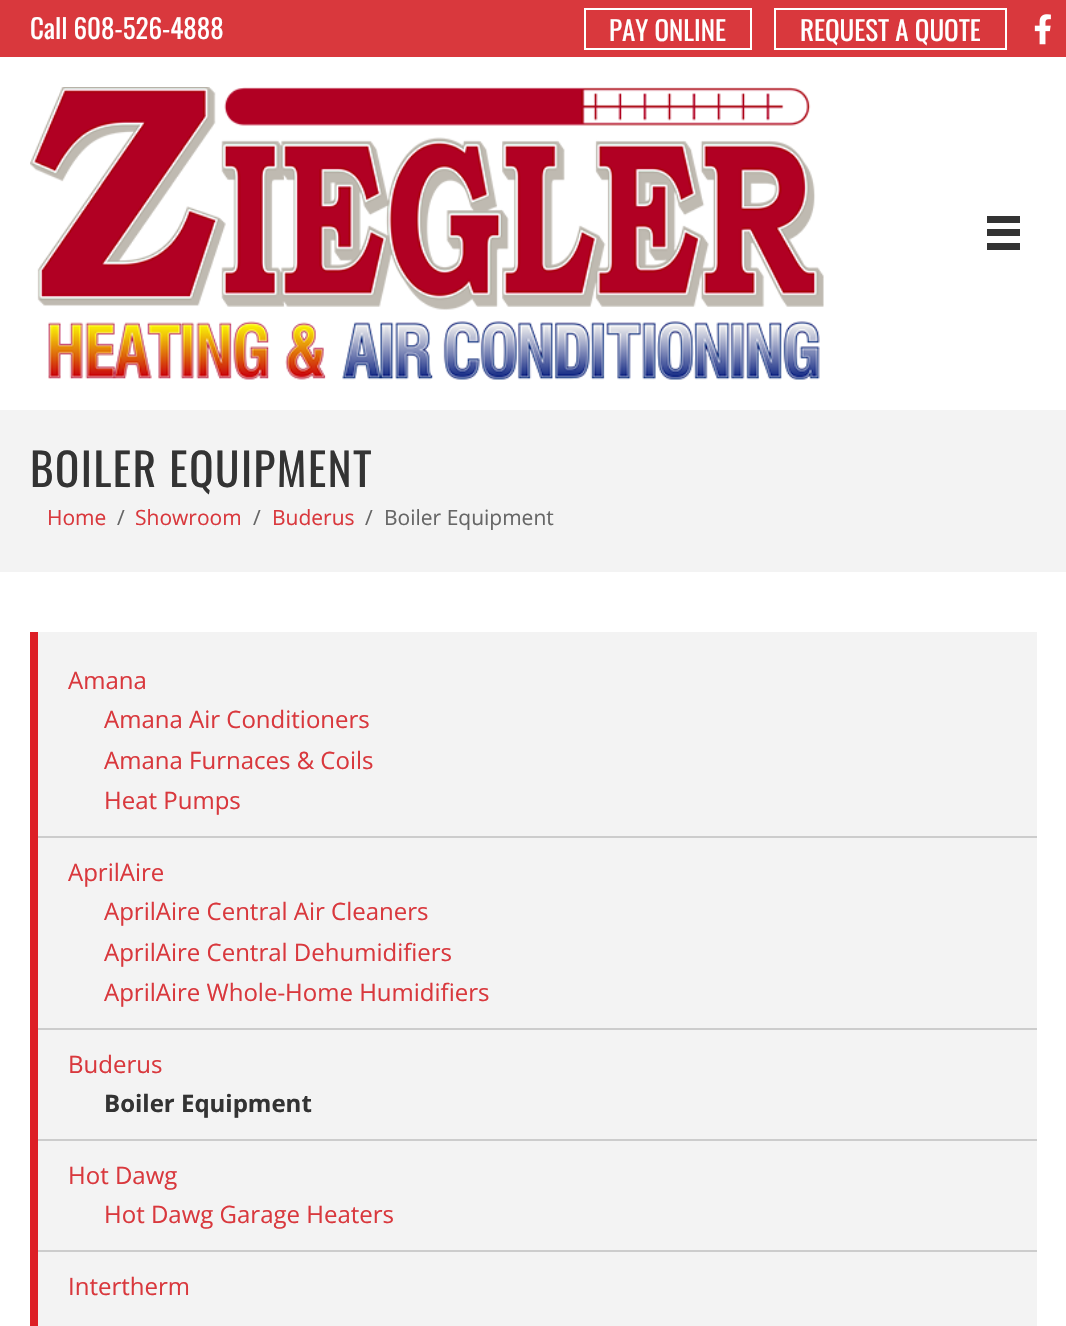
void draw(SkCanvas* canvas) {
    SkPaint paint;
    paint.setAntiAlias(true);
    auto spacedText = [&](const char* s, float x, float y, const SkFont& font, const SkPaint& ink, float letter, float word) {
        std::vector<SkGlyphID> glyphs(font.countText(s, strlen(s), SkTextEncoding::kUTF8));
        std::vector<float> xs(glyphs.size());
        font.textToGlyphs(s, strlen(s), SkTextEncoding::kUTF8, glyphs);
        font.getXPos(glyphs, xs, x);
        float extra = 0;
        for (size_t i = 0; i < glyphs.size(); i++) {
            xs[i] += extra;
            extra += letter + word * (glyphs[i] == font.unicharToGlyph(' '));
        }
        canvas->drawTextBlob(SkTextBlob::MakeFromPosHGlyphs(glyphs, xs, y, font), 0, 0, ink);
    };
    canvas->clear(0xFFFFFFFF);
    paint.setColor(0xFFD9383D);
    canvas->drawRect(SkRect::MakeXYWH(0, 0, 1066, 57), paint);
    SkFont font1(fontMgr->matchFamilyStyle("Oswald", SkFontStyle::Normal()), 27);
    font1.setSubpixel(true);
    paint.setColor(0xFFFFFFFF);
    canvas->drawString("Call 608-526-4888", 30, 39, font1, paint);
    paint.setStyle(SkPaint::kStroke_Style);
    paint.setStrokeWidth(2);
    canvas->drawRect(SkRect::MakeXYWH(585, 9, 166, 40), paint);
    paint.setStyle(SkPaint::kFill_Style);
    canvas->drawString("PAY ONLINE", 609, 41, font1, paint);
    paint.setStyle(SkPaint::kStroke_Style);
    canvas->drawRect(SkRect::MakeXYWH(775, 9, 231, 40), paint);
    paint.setStyle(SkPaint::kFill_Style);
    canvas->drawString("REQUEST A QUOTE", 800, 41, font1, paint);
    canvas->drawImageRect(SkImages::DeferredFromEncodedData(SkData::MakeFromFileName("img1.png")), SkRect::MakeXYWH(1034, 14, 17, 31), SkSamplingOptions());
    canvas->drawImageRect(SkImages::DeferredFromEncodedData(SkData::MakeFromFileName("img2.png")), SkRect::MakeXYWH(30, 87, 794, 293), SkSamplingOptions());
    paint.setColor(0xFF333333);
    canvas->drawRect(SkRect::MakeXYWH(987, 216, 33, 7), paint);
    canvas->drawRect(SkRect::MakeXYWH(987, 229, 33, 7), paint);
    canvas->drawRect(SkRect::MakeXYWH(987, 243, 33, 7), paint);
    paint.setColor(0xFFF3F3F3);
    canvas->drawRect(SkRect::MakeXYWH(0, 410, 1066, 162), paint);
    SkFont font2(fontMgr->matchFamilyStyle("Oswald", SkFontStyle::Normal()), 45);
    font2.setSubpixel(true);
    paint.setColor(0xFF333333);
    spacedText("BOILER EQUIPMENT", 30, 487, font2, paint, 1.5f, 0);
    SkFont font3(fontMgr->matchFamilyStyle("Open Sans", SkFontStyle::Normal()), 21);
    font3.setSubpixel(true);
    paint.setColor(0xFFD9383D);
    canvas->drawString("Home", 47, 525, font3, paint);
    paint.setColor(0xFF666666);
    canvas->drawString("/", 117, 525, font3, paint);
    paint.setColor(0xFFD9383D);
    canvas->drawString("Showroom", 135, 525, font3, paint);
    paint.setColor(0xFF666666);
    canvas->drawString("/", 253, 525, font3, paint);
    paint.setColor(0xFFD9383D);
    canvas->drawString("Buderus", 272, 525, font3, paint);
    paint.setColor(0xFF666666);
    canvas->drawString("/", 365, 525, font3, paint);
    canvas->drawString("Boiler Equipment", 384, 525, font3, paint);
    paint.setColor(0xFFDD1F26);
    canvas->drawRect(SkRect::MakeXYWH(30, 632, 8, 694), paint);
    paint.setColor(0xFFF3F3F3);
    canvas->drawRect(SkRect::MakeXYWH(38, 632, 999, 694), paint);
    paint.setColor(0xFFCCCCCC);
    canvas->drawRect(SkRect::MakeXYWH(38, 836, 999, 2), paint);
    SkFont font4(fontMgr->matchFamilyStyle("Open Sans", SkFontStyle::Normal()), 24);
    font4.setSubpixel(true);
    paint.setColor(0xFFD9383D);
    canvas->drawString("Amana", 68, 689, font4, paint);
    canvas->drawString("Amana Air Conditioners", 104, 728, font4, paint);
    canvas->drawString("Amana Furnaces & Coils", 104, 769, font4, paint);
    canvas->drawString("Heat Pumps", 104, 809, font4, paint);
    paint.setColor(0xFFCCCCCC);
    canvas->drawRect(SkRect::MakeXYWH(38, 1028, 999, 2), paint);
    paint.setColor(0xFFD9383D);
    canvas->drawString("AprilAire", 68, 881, font4, paint);
    canvas->drawString("AprilAire Central Air Cleaners", 104, 920, font4, paint);
    canvas->drawString("AprilAire Central Dehumidifiers", 104, 961, font4, paint);
    canvas->drawString("AprilAire Whole-Home Humidifiers", 104, 1001, font4, paint);
    paint.setColor(0xFFCCCCCC);
    canvas->drawRect(SkRect::MakeXYWH(38, 1139, 999, 2), paint);
    paint.setColor(0xFFD9383D);
    canvas->drawString("Buderus", 68, 1073, font4, paint);
    SkFont font5(fontMgr->matchFamilyStyle("Open Sans", SkFontStyle::Bold()), 24);
    font5.setSubpixel(true);
    paint.setColor(0xFF333333);
    canvas->drawString("Boiler Equipment", 104, 1112, font5, paint);
    paint.setColor(0xFFCCCCCC);
    canvas->drawRect(SkRect::MakeXYWH(38, 1250, 999, 2), paint);
    paint.setColor(0xFFD9383D);
    canvas->drawString("Hot Dawg", 68, 1184, font4, paint);
    canvas->drawString("Hot Dawg Garage Heaters", 104, 1223, font4, paint);
    canvas->drawString("Intertherm", 68, 1295, font4, paint);
}
